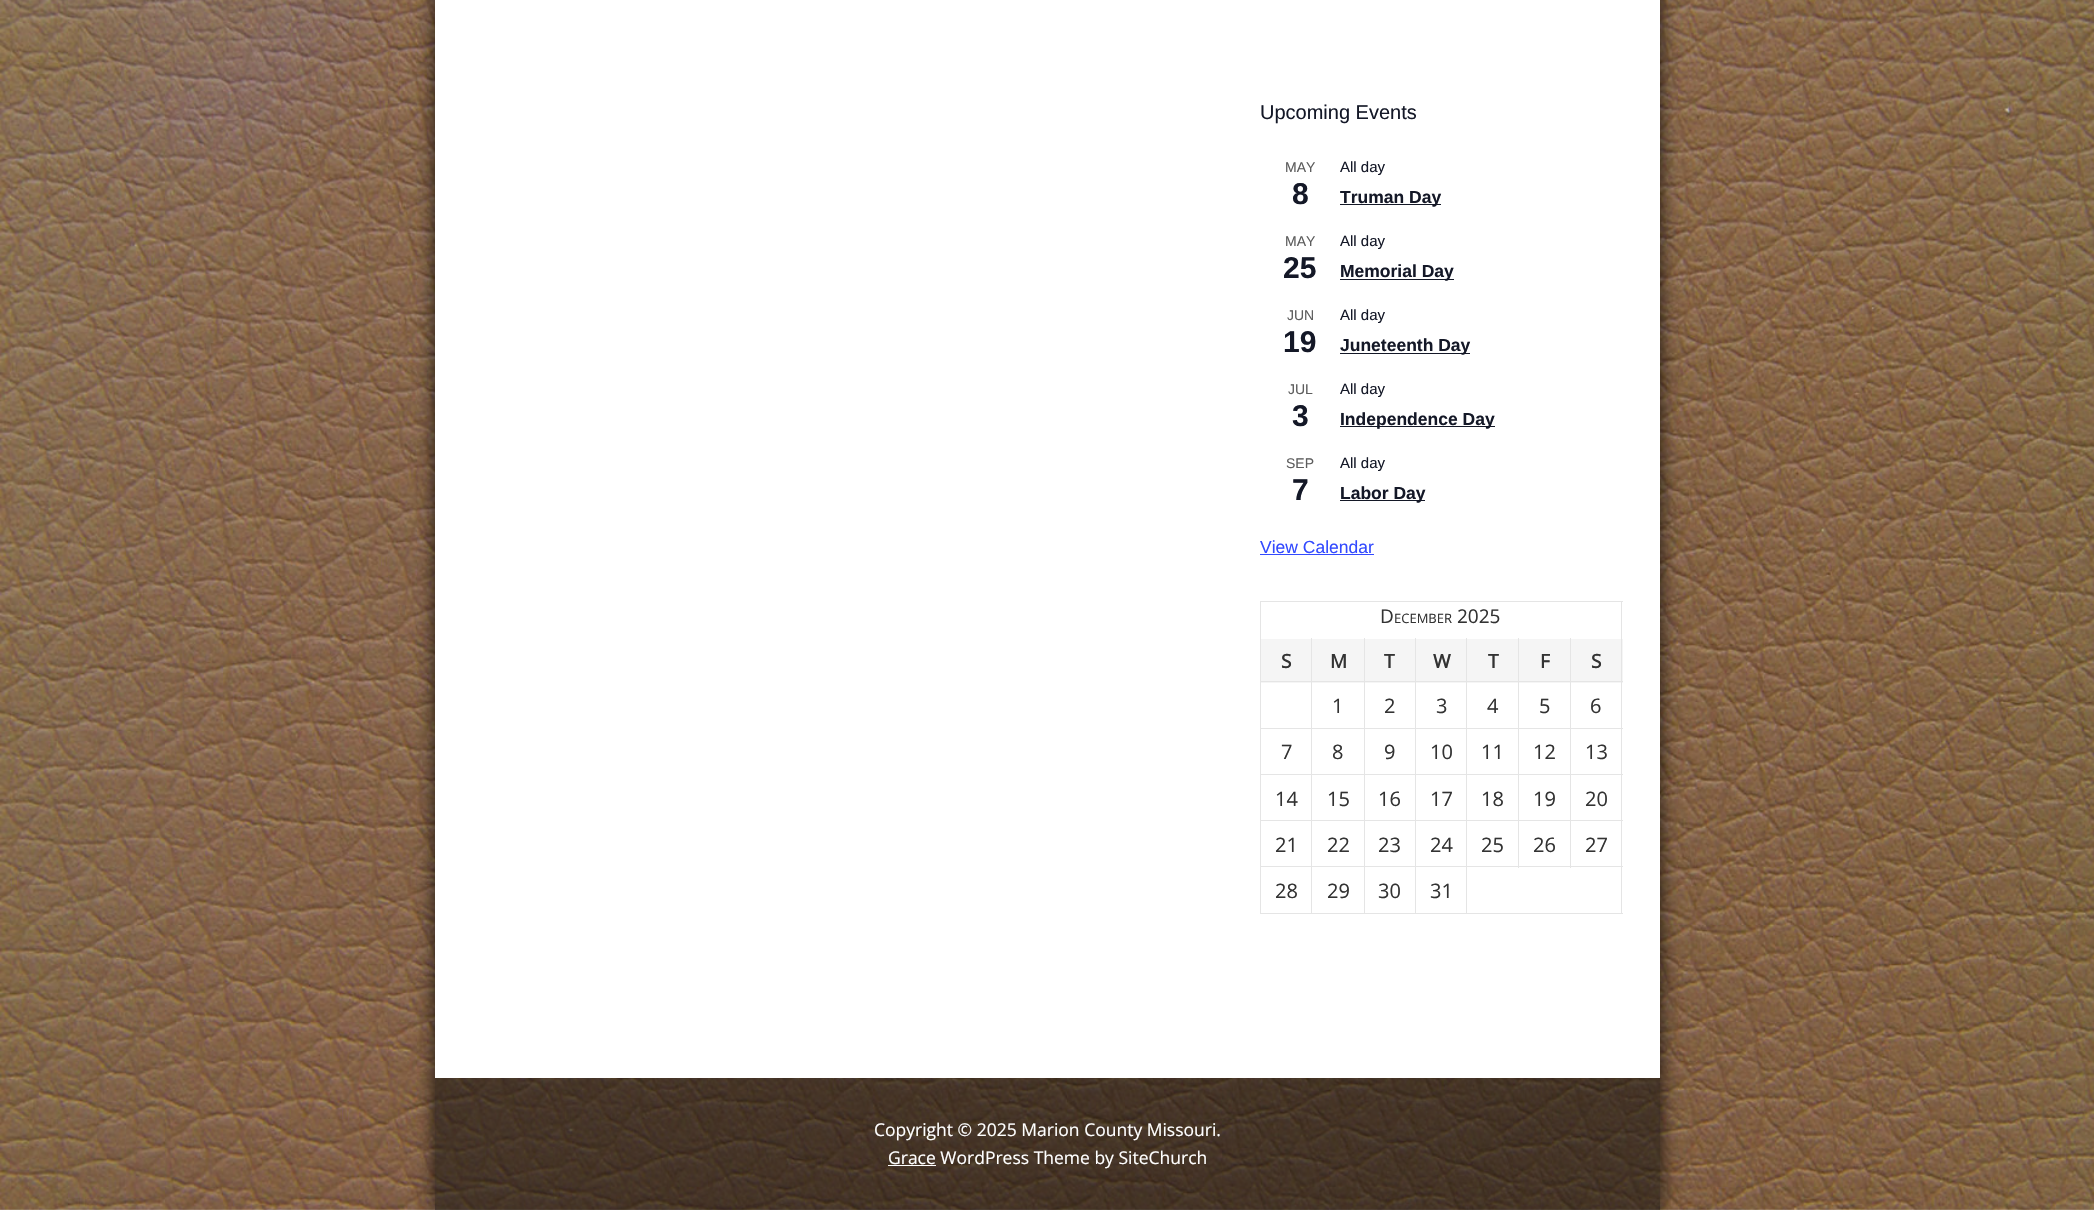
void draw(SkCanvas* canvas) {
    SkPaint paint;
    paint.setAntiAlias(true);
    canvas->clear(0xFFFFFFFF);
    canvas->drawImageRect(SkImages::DeferredFromEncodedData(SkData::MakeFromFileName("img1.png")), SkRect::MakeXYWH(0, 0, 2094, 1210), SkSamplingOptions());
    canvas->save();
    canvas->clipPath(SkPathBuilder(SkPathFillType::kEvenOdd).moveTo(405, 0).lineTo(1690, 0).lineTo(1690, 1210).lineTo(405, 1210).close().moveTo(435, -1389).lineTo(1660, -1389).lineTo(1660, 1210).lineTo(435, 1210).close().detach(), true);
    paint.setColor(0xCC000000);
    paint.setMaskFilter(SkMaskFilter::MakeBlur(kNormal_SkBlurStyle, 9.5f));
    canvas->drawRect(SkRect::MakeXYWH(435, -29, 1225, 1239), paint);
    paint.setMaskFilter(nullptr);
    canvas->restore();
    paint.setColor(0xFFFFFFFF);
    canvas->drawRect(SkRect::MakeXYWH(435, 0, 1225, 1078), paint);
    SkFont font1(fontMgr->matchFamilyStyle("Liberation Sans", SkFontStyle::Normal()), 20);
    font1.setSubpixel(true);
    paint.setColor(0xFF141827);
    canvas->drawString("Upcoming Events", 1260, 119, font1, paint);
    SkFont font2(fontMgr->matchFamilyStyle("Liberation Sans", SkFontStyle::Normal()), 14);
    font2.setSubpixel(true);
    paint.setColor(0xFF5D5D5D);
    canvas->drawString("MAY", 1285, 172, font2, paint);
    SkFont font3(fontMgr->matchFamilyStyle("Liberation Sans", SkFontStyle::Bold()), 30);
    font3.setSubpixel(true);
    paint.setColor(0xFF141827);
    canvas->drawString("8", 1292, 204, font3, paint);
    SkFont font4(fontMgr->matchFamilyStyle("Liberation Sans", SkFontStyle::Normal()), 15);
    font4.setSubpixel(true);
    canvas->drawString("All day", 1340, 172, font4, paint);
    canvas->drawRect(SkRect::MakeXYWH(1340, 204, 101, 1), paint);
    SkFont font5(fontMgr->matchFamilyStyle("Liberation Sans", SkFontStyle::Bold()), 17.5f);
    font5.setSubpixel(true);
    canvas->drawString("Truman Day", 1340, 203, font5, paint);
    paint.setColor(0xFF5D5D5D);
    canvas->drawString("MAY", 1285, 246, font2, paint);
    paint.setColor(0xFF141827);
    canvas->drawString("25", 1283, 278, font3, paint);
    canvas->drawString("All day", 1340, 246, font4, paint);
    canvas->drawRect(SkRect::MakeXYWH(1340, 279, 114, 1), paint);
    canvas->drawString("Memorial Day", 1340, 277, font5, paint);
    paint.setColor(0xFF5D5D5D);
    canvas->drawString("JUN", 1287, 320, font2, paint);
    paint.setColor(0xFF141827);
    canvas->drawString("19", 1283, 352, font3, paint);
    canvas->drawString("All day", 1340, 320, font4, paint);
    canvas->drawRect(SkRect::MakeXYWH(1340, 353, 130, 1), paint);
    canvas->drawString("Juneteenth Day", 1340, 351, font5, paint);
    paint.setColor(0xFF5D5D5D);
    canvas->drawString("JUL", 1288, 394, font2, paint);
    paint.setColor(0xFF141827);
    canvas->drawString("3", 1292, 426, font3, paint);
    canvas->drawString("All day", 1340, 394, font4, paint);
    canvas->drawRect(SkRect::MakeXYWH(1340, 426, 155, 1), paint);
    canvas->drawString("Independence Day", 1340, 425, font5, paint);
    paint.setColor(0xFF5D5D5D);
    canvas->drawString("SEP", 1286, 468, font2, paint);
    paint.setColor(0xFF141827);
    canvas->drawString("7", 1292, 500, font3, paint);
    canvas->drawString("All day", 1340, 468, font4, paint);
    canvas->drawRect(SkRect::MakeXYWH(1340, 500, 85, 1), paint);
    canvas->drawString("Labor Day", 1340, 499, font5, paint);
    SkFont font6(fontMgr->matchFamilyStyle("Liberation Sans", SkFontStyle::Normal()), 17.5f);
    font6.setSubpixel(true);
    paint.setColor(0xFF334AFF);
    canvas->drawString("View Calendar", 1260, 553, font6, paint);
    canvas->drawRect(SkRect::MakeXYWH(1260, 554, 114, 1), paint);
    paint.setColor(0xFFE5E5E5);
    canvas->drawRect(SkRect::MakeXYWH(1260, 601, 363, 1), paint);
    paint.setColor(0xFFF5F5F5);
    canvas->drawRect(SkRect::MakeXYWH(1571, 639, 52, 44), paint);
    paint.setColor(0xFFE5E5E5);
    canvas->drawRect(SkRect::MakeXYWH(1621, 601, 1, 313), paint);
    canvas->drawRect(SkRect::MakeXYWH(1260, 913, 363, 1), paint);
    canvas->drawRect(SkRect::MakeXYWH(1260, 601, 1, 313), paint);
    SkFont font7(fontMgr->matchFamilyStyle("Open Sans", SkFontStyle::Normal()), 19);
    font7.setSubpixel(true);
    paint.setColor(0xFF333333);
    canvas->drawString("D", 1380, 623, font7, paint);
    SkFont font8(fontMgr->matchFamilyStyle("Open Sans", SkFontStyle::Normal()), 13);
    font8.setSubpixel(true);
    canvas->drawString("ECEMBER", 1394, 623, font8, paint);
    canvas->drawString("2025", 1457, 623, font7, paint);
    paint.setColor(0xFFF5F5F5);
    canvas->drawRect(SkRect::MakeXYWH(1261, 639, 103, 44), paint);
    canvas->drawRect(SkRect::MakeXYWH(1365, 639, 50, 44), paint);
    canvas->drawRect(SkRect::MakeXYWH(1416, 639, 102, 44), paint);
    canvas->drawRect(SkRect::MakeXYWH(1519, 639, 51, 44), paint);
    paint.setColor(0xFFE5E5E5);
    canvas->drawRect(SkRect::MakeXYWH(1570, 866, 53, 1), paint);
    canvas->drawRect(SkRect::MakeXYWH(1570, 820, 1, 48), paint);
    canvas->drawRect(SkRect::MakeXYWH(1570, 820, 53, 1), paint);
    canvas->drawRect(SkRect::MakeXYWH(1570, 774, 1, 47), paint);
    canvas->drawRect(SkRect::MakeXYWH(1570, 774, 53, 1), paint);
    canvas->drawRect(SkRect::MakeXYWH(1570, 728, 1, 47), paint);
    canvas->drawRect(SkRect::MakeXYWH(1570, 728, 53, 1), paint);
    canvas->drawRect(SkRect::MakeXYWH(1570, 681, 1, 48), paint);
    canvas->drawRect(SkRect::MakeXYWH(1570, 681, 53, 1), paint);
    canvas->drawRect(SkRect::MakeXYWH(1570, 638, 1, 45), paint);
    canvas->drawRect(SkRect::MakeXYWH(1518, 866, 53, 1), paint);
    canvas->drawRect(SkRect::MakeXYWH(1518, 820, 1, 48), paint);
    canvas->drawRect(SkRect::MakeXYWH(1518, 820, 53, 1), paint);
    canvas->drawRect(SkRect::MakeXYWH(1518, 774, 1, 47), paint);
    canvas->drawRect(SkRect::MakeXYWH(1518, 774, 53, 1), paint);
    canvas->drawRect(SkRect::MakeXYWH(1518, 728, 1, 47), paint);
    canvas->drawRect(SkRect::MakeXYWH(1518, 728, 53, 1), paint);
    canvas->drawRect(SkRect::MakeXYWH(1518, 681, 1, 48), paint);
    canvas->drawRect(SkRect::MakeXYWH(1518, 681, 53, 1), paint);
    canvas->drawRect(SkRect::MakeXYWH(1518, 638, 1, 45), paint);
    canvas->drawRect(SkRect::MakeXYWH(1466, 866, 1, 48), paint);
    canvas->drawRect(SkRect::MakeXYWH(1466, 866, 53, 1), paint);
    canvas->drawRect(SkRect::MakeXYWH(1466, 820, 1, 48), paint);
    canvas->drawRect(SkRect::MakeXYWH(1466, 820, 53, 1), paint);
    canvas->drawRect(SkRect::MakeXYWH(1466, 774, 1, 47), paint);
    canvas->drawRect(SkRect::MakeXYWH(1466, 774, 53, 1), paint);
    canvas->drawRect(SkRect::MakeXYWH(1466, 728, 1, 47), paint);
    canvas->drawRect(SkRect::MakeXYWH(1466, 728, 53, 1), paint);
    canvas->drawRect(SkRect::MakeXYWH(1466, 681, 1, 48), paint);
    canvas->drawRect(SkRect::MakeXYWH(1466, 681, 53, 1), paint);
    canvas->drawRect(SkRect::MakeXYWH(1466, 638, 1, 45), paint);
    canvas->drawRect(SkRect::MakeXYWH(1415, 866, 1, 48), paint);
    canvas->drawRect(SkRect::MakeXYWH(1415, 866, 53, 1), paint);
    canvas->drawRect(SkRect::MakeXYWH(1415, 820, 1, 48), paint);
    canvas->drawRect(SkRect::MakeXYWH(1415, 820, 53, 1), paint);
    canvas->drawRect(SkRect::MakeXYWH(1415, 774, 1, 47), paint);
    canvas->drawRect(SkRect::MakeXYWH(1415, 774, 53, 1), paint);
    canvas->drawRect(SkRect::MakeXYWH(1415, 728, 1, 47), paint);
    canvas->drawRect(SkRect::MakeXYWH(1415, 728, 53, 1), paint);
    canvas->drawRect(SkRect::MakeXYWH(1415, 681, 1, 48), paint);
    canvas->drawRect(SkRect::MakeXYWH(1415, 681, 53, 1), paint);
    canvas->drawRect(SkRect::MakeXYWH(1415, 638, 1, 45), paint);
    canvas->drawRect(SkRect::MakeXYWH(1364, 866, 1, 48), paint);
    canvas->drawRect(SkRect::MakeXYWH(1364, 866, 52, 1), paint);
    canvas->drawRect(SkRect::MakeXYWH(1364, 820, 1, 48), paint);
    canvas->drawRect(SkRect::MakeXYWH(1364, 820, 52, 1), paint);
    canvas->drawRect(SkRect::MakeXYWH(1364, 774, 1, 47), paint);
    canvas->drawRect(SkRect::MakeXYWH(1364, 774, 52, 1), paint);
    canvas->drawRect(SkRect::MakeXYWH(1364, 728, 1, 47), paint);
    canvas->drawRect(SkRect::MakeXYWH(1364, 728, 52, 1), paint);
    canvas->drawRect(SkRect::MakeXYWH(1364, 681, 1, 48), paint);
    canvas->drawRect(SkRect::MakeXYWH(1364, 681, 52, 1), paint);
    canvas->drawRect(SkRect::MakeXYWH(1364, 638, 1, 45), paint);
    canvas->drawRect(SkRect::MakeXYWH(1311, 866, 1, 48), paint);
    canvas->drawRect(SkRect::MakeXYWH(1311, 866, 54, 1), paint);
    canvas->drawRect(SkRect::MakeXYWH(1311, 820, 1, 48), paint);
    canvas->drawRect(SkRect::MakeXYWH(1311, 820, 54, 1), paint);
    canvas->drawRect(SkRect::MakeXYWH(1311, 774, 1, 47), paint);
    canvas->drawRect(SkRect::MakeXYWH(1311, 774, 54, 1), paint);
    canvas->drawRect(SkRect::MakeXYWH(1311, 728, 1, 47), paint);
    canvas->drawRect(SkRect::MakeXYWH(1311, 728, 54, 1), paint);
    canvas->drawRect(SkRect::MakeXYWH(1311, 681, 1, 48), paint);
    canvas->drawRect(SkRect::MakeXYWH(1311, 681, 54, 1), paint);
    canvas->drawRect(SkRect::MakeXYWH(1311, 638, 1, 45), paint);
    canvas->drawRect(SkRect::MakeXYWH(1260, 681, 53, 1), paint);
    SkFont font9(fontMgr->matchFamilyStyle("Open Sans", SkFontStyle::Bold()), 19);
    font9.setSubpixel(true);
    paint.setColor(0xFF333333);
    canvas->drawString("S", 1281, 668, font9, paint);
    canvas->drawString("M", 1330, 668, font9, paint);
    canvas->drawString("T", 1384, 668, font9, paint);
    canvas->drawString("W", 1433, 668, font9, paint);
    canvas->drawString("T", 1488, 668, font9, paint);
    canvas->drawString("F", 1540, 668, font9, paint);
    canvas->drawString("S", 1591, 668, font9, paint);
    paint.setColor(0xFFE5E5E5);
    canvas->drawRect(SkRect::MakeXYWH(1260, 728, 53, 1), paint);
    SkFont font10(fontMgr->matchFamilyStyle("Open Sans", SkFontStyle::Normal()), 20);
    font10.setSubpixel(true);
    paint.setColor(0xFF333333);
    canvas->drawString("1", 1332, 713, font10, paint);
    canvas->drawString("2", 1384, 713, font10, paint);
    canvas->drawString("3", 1436, 713, font10, paint);
    canvas->drawString("4", 1487, 713, font10, paint);
    canvas->drawString("5", 1539, 713, font10, paint);
    canvas->drawString("6", 1590, 713, font10, paint);
    paint.setColor(0xFFE5E5E5);
    canvas->drawRect(SkRect::MakeXYWH(1260, 774, 53, 1), paint);
    paint.setColor(0xFF333333);
    canvas->drawString("7", 1281, 759, font10, paint);
    canvas->drawString("8", 1332, 759, font10, paint);
    canvas->drawString("9", 1384, 759, font10, paint);
    canvas->drawString("10", 1430, 759, font10, paint);
    canvas->drawString("11", 1481, 759, font10, paint);
    canvas->drawString("12", 1533, 759, font10, paint);
    canvas->drawString("13", 1585, 759, font10, paint);
    paint.setColor(0xFFE5E5E5);
    canvas->drawRect(SkRect::MakeXYWH(1260, 820, 53, 1), paint);
    paint.setColor(0xFF333333);
    canvas->drawString("14", 1275, 806, font10, paint);
    canvas->drawString("15", 1327, 806, font10, paint);
    canvas->drawString("16", 1378, 806, font10, paint);
    canvas->drawString("17", 1430, 806, font10, paint);
    canvas->drawString("18", 1481, 806, font10, paint);
    canvas->drawString("19", 1533, 806, font10, paint);
    canvas->drawString("20", 1585, 806, font10, paint);
    paint.setColor(0xFFE5E5E5);
    canvas->drawRect(SkRect::MakeXYWH(1260, 866, 53, 1), paint);
    paint.setColor(0xFF333333);
    canvas->drawString("21", 1275, 852, font10, paint);
    canvas->drawString("22", 1327, 852, font10, paint);
    canvas->drawString("23", 1378, 852, font10, paint);
    canvas->drawString("24", 1430, 852, font10, paint);
    canvas->drawString("25", 1481, 852, font10, paint);
    canvas->drawString("26", 1533, 852, font10, paint);
    canvas->drawString("27", 1585, 852, font10, paint);
    canvas->drawString("28", 1275, 898, font10, paint);
    canvas->drawString("29", 1327, 898, font10, paint);
    canvas->drawString("30", 1378, 898, font10, paint);
    canvas->drawString("31", 1430, 898, font10, paint);
    paint.setColor(0x800A0A0A);
    canvas->drawRect(SkRect::MakeXYWH(435, 1078, 1225, 132), paint);
    SkFont font11(fontMgr->matchFamilyStyle("Open Sans", SkFontStyle::Normal()), 17.5f);
    font11.setSubpixel(true);
    paint.setColor(0xFFFFFFFF);
    canvas->drawString("Copyright © 2025 Marion County Missouri.", 874, 1136, font11, paint);
    canvas->drawRect(SkRect::MakeXYWH(888, 1165, 48, 1), paint);
    canvas->drawString("Grace WordPress Theme by SiteChurch", 888, 1164, font11, paint);
}
